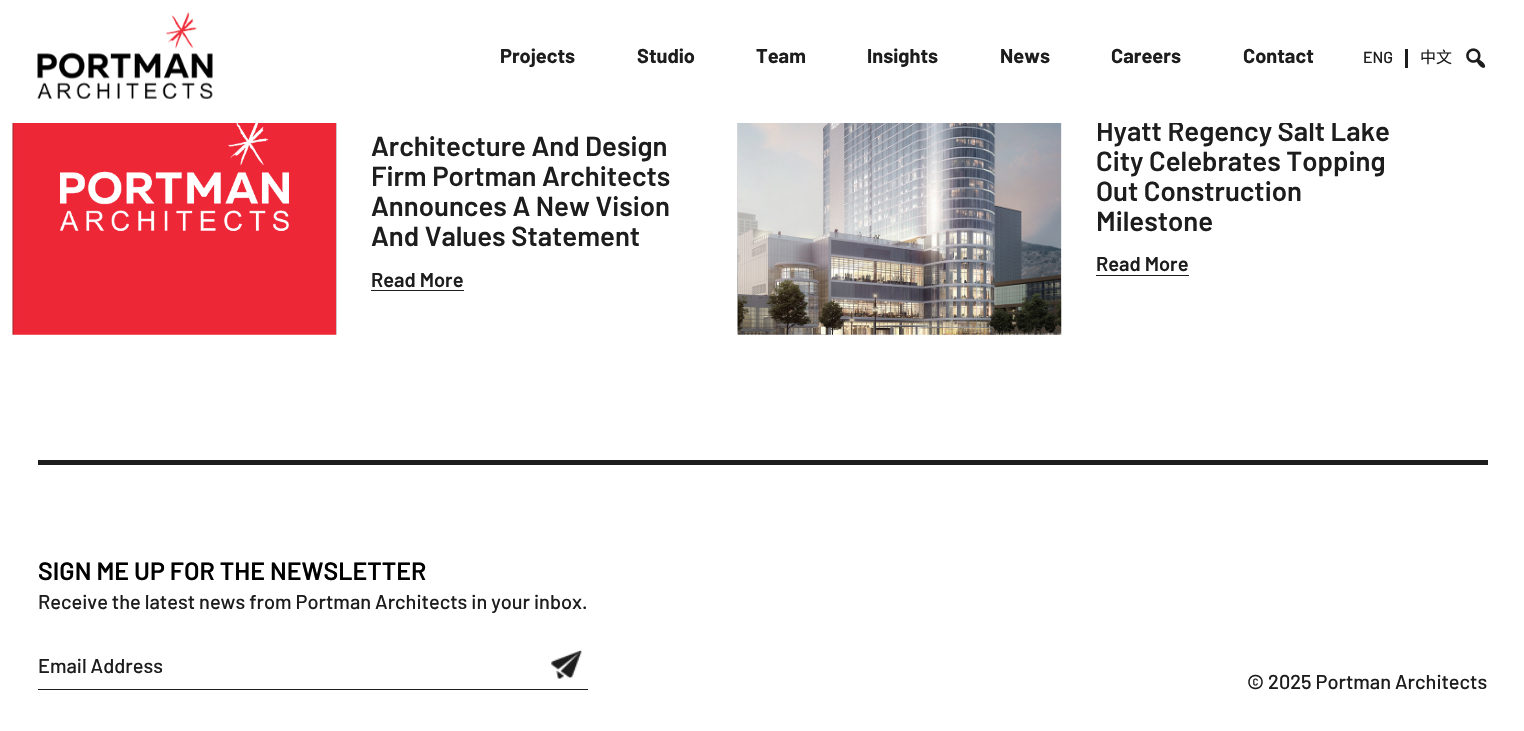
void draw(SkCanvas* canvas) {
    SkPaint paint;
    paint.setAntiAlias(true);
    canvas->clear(0xFFFFFFFF);
    SkFont font1(fontMgr->matchFamilyStyle("Barlow", SkFontStyle(600, SkFontStyle::kNormal_Width, SkFontStyle::kUpright_Slant)), 27.5f);
    font1.setSubpixel(true);
    paint.setColor(0xFF1D1D1D);
    canvas->drawString("Hyatt Regency Salt Lake", 1096, 141, font1, paint);
    paint.setColor(0xFFFFFFFF);
    canvas->drawRect(SkRect::MakeXYWH(1098, 121, 269, 2), paint);
    canvas->drawImageRect(SkImages::DeferredFromEncodedData(SkData::MakeFromFileName("img1.png")), SkRect::MakeXYWH(37, 12, 176, 87), SkSamplingOptions());
    SkFont font2(fontMgr->matchFamilyStyle("Barlow", SkFontStyle::Bold()), 20);
    font2.setSubpixel(true);
    paint.setColor(0xFF1D1D1D);
    canvas->drawString("Projects", 500, 63, font2, paint);
    canvas->drawString("Studio", 637, 63, font2, paint);
    canvas->drawString("Team", 756, 63, font2, paint);
    canvas->drawString("Insights", 867, 63, font2, paint);
    canvas->drawString("News", 1000, 63, font2, paint);
    canvas->drawString("Careers", 1111, 63, font2, paint);
    canvas->drawString("Contact", 1243, 63, font2, paint);
    SkFont font3(fontMgr->matchFamilyStyle("Barlow", SkFontStyle(500, SkFontStyle::kNormal_Width, SkFontStyle::kUpright_Slant)), 16);
    font3.setSubpixel(true);
    canvas->drawString("ENG", 1363, 63, font3, paint);
    canvas->drawRect(SkRect::MakeXYWH(1405, 49, 3, 19), paint);
    SkFont font4(fontMgr->matchFamilyStyle("Noto Sans CJK SC", SkFontStyle::Normal()), 16);
    font4.setSubpixel(true);
    canvas->drawString("中文", 1420, 63, font4, paint);
    canvas->drawImageRect(SkImages::DeferredFromEncodedData(SkData::MakeFromFileName("img2.png")), SkRect::MakeXYWH(1466, 48, 20, 20), SkSamplingOptions());
    canvas->drawImageRect(SkImages::DeferredFromEncodedData(SkData::MakeFromFileName("img3.png")), SkRect::MakeXYWH(12, 123, 325, 212), SkSamplingOptions());
    canvas->drawString("Architecture And Design", 371, 156, font1, paint);
    canvas->drawString("Firm Portman Architects", 371, 186, font1, paint);
    canvas->drawString("Announces A New Vision", 371, 216, font1, paint);
    canvas->drawString("And Values Statement", 371, 246, font1, paint);
    SkFont font5(fontMgr->matchFamilyStyle("Barlow", SkFontStyle(600, SkFontStyle::kNormal_Width, SkFontStyle::kUpright_Slant)), 20);
    font5.setSubpixel(true);
    canvas->drawString("Read More", 371, 287, font5, paint);
    canvas->drawRect(SkRect::MakeXYWH(371, 290, 93, 1), paint);
    canvas->drawImageRect(SkImages::DeferredFromEncodedData(SkData::MakeFromFileName("img4.png")), SkRect::MakeXYWH(737, 123, 325, 212), SkSamplingOptions());
    canvas->drawString("City Celebrates Topping", 1096, 171, font1, paint);
    canvas->drawString("Out Construction", 1096, 201, font1, paint);
    canvas->drawString("Milestone", 1096, 231, font1, paint);
    canvas->drawString("Read More", 1096, 271, font5, paint);
    canvas->drawRect(SkRect::MakeXYWH(1096, 275, 93, 1), paint);
    canvas->drawRect(SkRect::MakeXYWH(38, 460, 1450, 5), paint);
    SkFont font6(fontMgr->matchFamilyStyle("Barlow", SkFontStyle(600, SkFontStyle::kNormal_Width, SkFontStyle::kUpright_Slant)), 25);
    font6.setSubpixel(true);
    paint.setColor(0xFF000000);
    canvas->drawString("SIGN ME UP FOR THE NEWSLETTER", 38, 580, font6, paint);
    SkFont font7(fontMgr->matchFamilyStyle("Barlow", SkFontStyle(500, SkFontStyle::kNormal_Width, SkFontStyle::kUpright_Slant)), 20);
    font7.setSubpixel(true);
    paint.setColor(0xFF1D1D1D);
    canvas->drawString("Receive the latest news from Portman Architects in your inbox.", 38, 609, font7, paint);
    canvas->drawRect(SkRect::MakeXYWH(38, 689, 550, 1), paint);
    canvas->drawString("Email Address", 38, 673, font7, paint);
    canvas->drawImageRect(SkImages::DeferredFromEncodedData(SkData::MakeFromFileName("img5.png")), SkRect::MakeXYWH(551, 650, 31, 29), SkSamplingOptions());
    canvas->drawString("© 2025 Portman Architects", 1247, 689, font7, paint);
}
